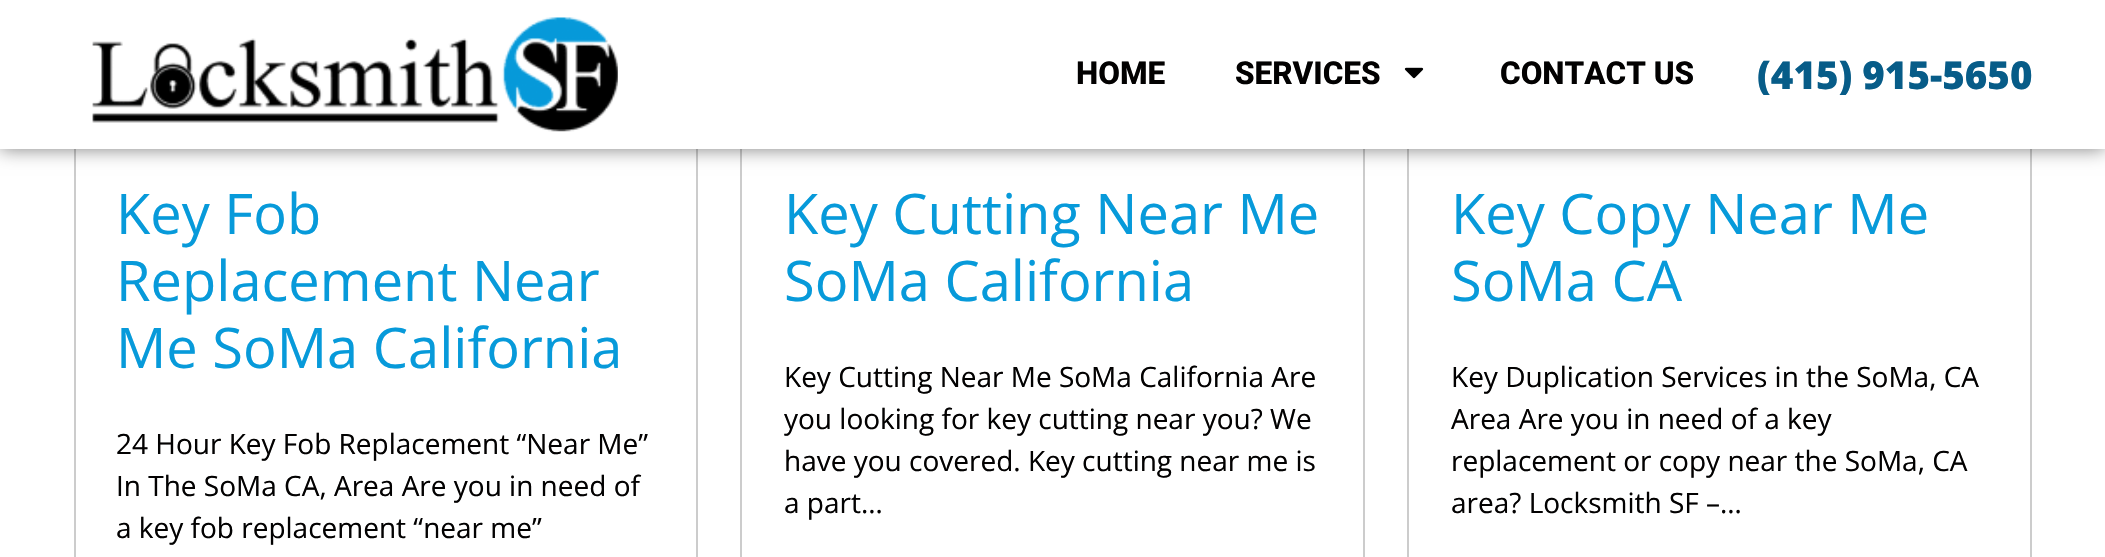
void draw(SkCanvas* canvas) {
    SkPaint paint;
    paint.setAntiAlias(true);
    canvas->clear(0xFFFFFFFF);
    paint.setStyle(SkPaint::kStroke_Style);
    paint.setStrokeWidth(2);
    paint.setColor(0xFFCCCCCC);
    canvas->drawRect(SkRect::MakeXYWH(75, -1, 622, 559), paint);
    canvas->drawRect(SkRect::MakeXYWH(741, -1, 623, 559), paint);
    canvas->drawRect(SkRect::MakeXYWH(1408, -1, 623, 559), paint);
    paint.setStyle(SkPaint::kFill_Style);
    paint.setColor(0x80000000);
    paint.setMaskFilter(SkMaskFilter::MakeBlur(kNormal_SkBlurStyle, 9));
    canvas->drawRect(SkRect::MakeXYWH(0, 0, 2105, 149), paint);
    paint.setMaskFilter(nullptr);
    paint.setColor(0xFFFFFFFF);
    canvas->drawRect(SkRect::MakeXYWH(0, 0, 2105, 149), paint);
    canvas->drawImageRect(SkImages::DeferredFromEncodedData(SkData::MakeFromFileName("img1.png")), SkRect::MakeXYWH(92, 17, 526, 115), SkSamplingOptions());
    SkFont font1(fontMgr->matchFamilyStyle("Roboto", SkFontStyle(800, SkFontStyle::kNormal_Width, SkFontStyle::kUpright_Slant)), 31.5f);
    font1.setSubpixel(true);
    paint.setColor(0xFF020101);
    canvas->drawString("HOME", 1076, 84, font1, paint);
    canvas->drawString("SERVICES", 1235, 84, font1, paint);
    canvas->drawImageRect(SkImages::DeferredFromEncodedData(SkData::MakeFromFileName("img2.png")), SkRect::MakeXYWH(1404, 67, 20, 12), SkSamplingOptions());
    canvas->drawString("CONTACT US", 1500, 84, font1, paint);
    SkFont font2(fontMgr->matchFamilyStyle("Open Sans", SkFontStyle(800, SkFontStyle::kNormal_Width, SkFontStyle::kUpright_Slant)), 38.5f);
    font2.setSubpixel(true);
    paint.setColor(0xFF075C88);
    canvas->drawString("(415) 915-5650", 1757, 89, font2, paint);
    SkFont font3(fontMgr->matchFamilyStyle("Open Sans", SkFontStyle::Normal()), 56);
    font3.setSubpixel(true);
    paint.setColor(0xFF079ADA);
    canvas->drawString("Key Fob", 116, 234, font3, paint);
    canvas->drawString("Replacement Near", 116, 301, font3, paint);
    canvas->drawString("Me SoMa California", 116, 368, font3, paint);
    SkFont font4(fontMgr->matchFamilyStyle("Open Sans", SkFontStyle::Normal()), 28);
    font4.setSubpixel(true);
    paint.setColor(0xFF020101);
    canvas->drawString("24 Hour Key Fob Replacement “Near Me”", 116, 454, font4, paint);
    canvas->drawString("In The SoMa CA, Area Are you in need of", 116, 496, font4, paint);
    canvas->drawString("a key fob replacement “near me”", 116, 538, font4, paint);
    paint.setColor(0xFF079ADA);
    canvas->drawString("Key Cutting Near Me", 784, 234, font3, paint);
    canvas->drawString("SoMa California", 784, 301, font3, paint);
    paint.setColor(0xFF020101);
    canvas->drawString("Key Cutting Near Me SoMa California Are", 784, 387, font4, paint);
    canvas->drawString("you looking for key cutting near you? We", 784, 429, font4, paint);
    canvas->drawString("have you covered. Key cutting near me is", 784, 471, font4, paint);
    canvas->drawString("a part…", 784, 513, font4, paint);
    paint.setColor(0xFF079ADA);
    canvas->drawString("Key Copy Near Me", 1451, 234, font3, paint);
    canvas->drawString("SoMa CA", 1451, 301, font3, paint);
    paint.setColor(0xFF020101);
    canvas->drawString("Key Duplication Services in the SoMa, CA", 1451, 387, font4, paint);
    canvas->drawString("Area Are you in need of a key", 1451, 429, font4, paint);
    canvas->drawString("replacement or copy near the SoMa, CA", 1451, 471, font4, paint);
    canvas->drawString("area? Locksmith SF –…", 1451, 513, font4, paint);
}
